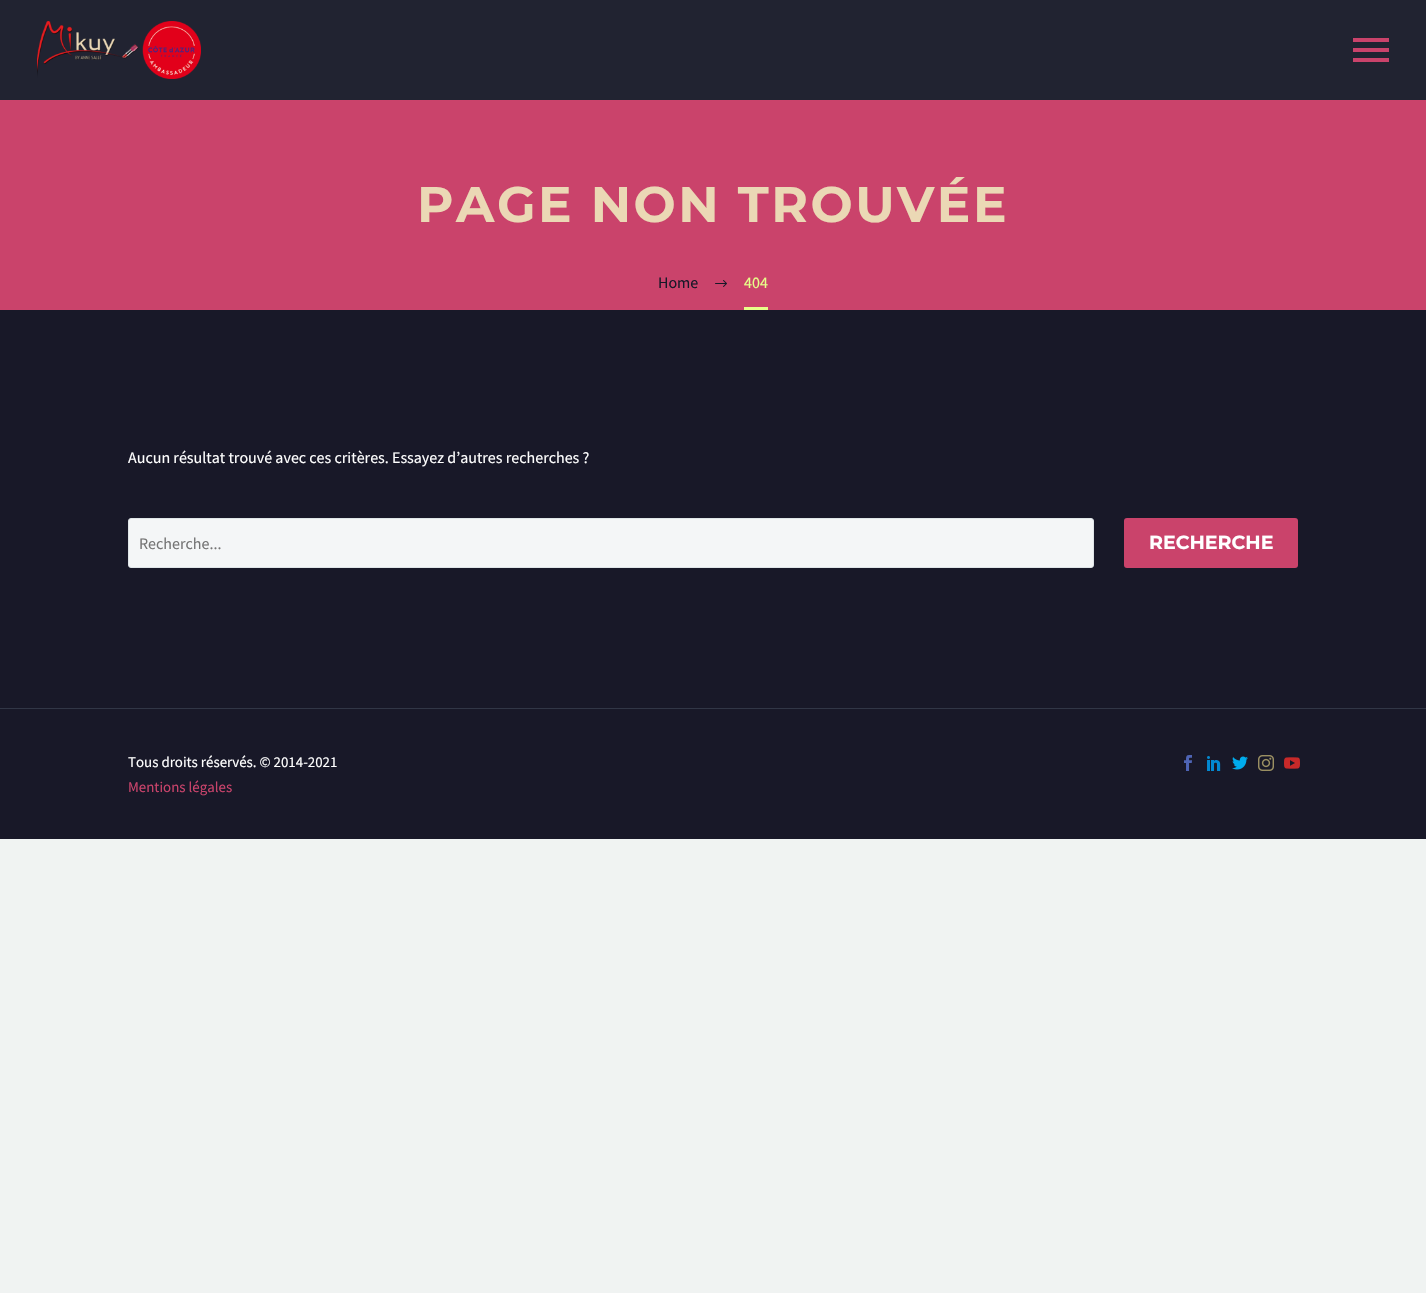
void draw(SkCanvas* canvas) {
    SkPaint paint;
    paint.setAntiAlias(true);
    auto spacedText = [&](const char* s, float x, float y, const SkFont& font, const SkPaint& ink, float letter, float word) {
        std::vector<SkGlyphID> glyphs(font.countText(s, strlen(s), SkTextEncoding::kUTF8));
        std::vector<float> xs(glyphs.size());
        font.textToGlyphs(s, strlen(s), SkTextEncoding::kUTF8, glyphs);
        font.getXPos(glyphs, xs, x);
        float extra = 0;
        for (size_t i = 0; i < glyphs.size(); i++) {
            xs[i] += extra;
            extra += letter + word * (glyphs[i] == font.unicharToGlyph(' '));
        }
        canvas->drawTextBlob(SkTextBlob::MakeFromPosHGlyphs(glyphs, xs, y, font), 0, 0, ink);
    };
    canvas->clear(0xFFF0F3F2);
    paint.setColor(0xFF212331);
    canvas->drawRect(SkRect::MakeXYWH(0, 0, 1426, 100), paint);
    canvas->drawImageRect(SkImages::DeferredFromEncodedData(SkData::MakeFromFileName("img1.png")), SkRect::MakeXYWH(37, 21, 164, 58), SkSamplingOptions());
    paint.setColor(0xFFCA436B);
    canvas->drawRect(SkRect::MakeXYWH(1353, 38, 36, 4), paint);
    canvas->drawRect(SkRect::MakeXYWH(1353, 48, 36, 4), paint);
    canvas->drawRect(SkRect::MakeXYWH(1353, 58, 36, 4), paint);
    canvas->drawRect(SkRect::MakeXYWH(0, 100, 1426, 210), paint);
    SkFont font1(fontMgr->matchFamilyStyle("Montserrat", SkFontStyle::Bold()), 50);
    font1.setSubpixel(true);
    paint.setColor(0xFFEBD8B5);
    spacedText("PAGE NON TROUVÉE", 417, 222, font1, paint, 2.5f, 0);
    SkFont font2(fontMgr->matchFamilyStyle("Source Sans Pro", SkFontStyle::Normal()), 16);
    font2.setSubpixel(true);
    paint.setColor(0xFF181828);
    canvas->drawString("Home", 658, 288, font2, paint);
    canvas->drawImageRect(SkImages::DeferredFromEncodedData(SkData::MakeFromFileName("img2.png")), SkRect::MakeXYWH(715, 280, 12, 7), SkSamplingOptions());
    paint.setColor(0xFFE7FF89);
    canvas->drawRect(SkRect::MakeXYWH(744, 307, 24, 3), paint);
    canvas->drawString("404", 744, 288, font2, paint);
    paint.setColor(0xFF181828);
    canvas->drawRect(SkRect::MakeXYWH(0, 310, 1426, 398), paint);
    paint.setColor(0xFFFFFFFF);
    canvas->drawString("Aucun résultat trouvé avec ces critères. Essayez d’autres recherches ?", 128, 463, font2, paint);
    paint.setColor(0xFFF4F6F7);
    canvas->drawRoundRect(SkRect::MakeXYWH(128.5f, 518.5f, 965, 49), 2.5f, 2.5f, paint);
    paint.setStyle(SkPaint::kStroke_Style);
    paint.setStrokeWidth(1);
    paint.setColor(0xFFDFE5E8);
    canvas->drawRoundRect(SkRect::MakeXYWH(128.5f, 518.5f, 965, 49), 2.5f, 2.5f, paint);
    paint.setStyle(SkPaint::kFill_Style);
    paint.setColor(0xFF757575);
    canvas->drawString("Recherche...", 139, 549, font2, paint);
    paint.setColor(0xFFCA436B);
    canvas->drawRoundRect(SkRect::MakeXYWH(1124, 518, 174, 50), 3, 3, paint);
    SkFont font3(fontMgr->matchFamilyStyle("Montserrat", SkFontStyle::Bold()), 19);
    font3.setSubpixel(true);
    paint.setColor(0xFFFFFFFF);
    canvas->drawString("RECHERCHE", 1149, 549, font3, paint);
    paint.setColor(0xFF181828);
    canvas->drawRect(SkRect::MakeXYWH(0, 709, 1426, 130), paint);
    paint.setColor(0xFF313646);
    canvas->drawRect(SkRect::MakeXYWH(0, 708, 1426, 1), paint);
    SkFont font4(fontMgr->matchFamilyStyle("Source Sans Pro", SkFontStyle::Normal()), 14.9f);
    font4.setSubpixel(true);
    paint.setColor(0xFFFFFFFF);
    canvas->drawString("Tous droits réservés. © 2014-2021", 128, 767, font4, paint);
    paint.setColor(0xFFCA436B);
    canvas->drawString("Mentions légales", 128, 792, font4, paint);
    canvas->drawImageRect(SkImages::DeferredFromEncodedData(SkData::MakeFromFileName("img3.png")), SkRect::MakeXYWH(1184, 755, 8, 16), SkSamplingOptions());
    canvas->drawImageRect(SkImages::DeferredFromEncodedData(SkData::MakeFromFileName("img4.png")), SkRect::MakeXYWH(1207, 756, 14, 15), SkSamplingOptions());
    canvas->drawImageRect(SkImages::DeferredFromEncodedData(SkData::MakeFromFileName("img5.png")), SkRect::MakeXYWH(1232, 756, 16, 14), SkSamplingOptions());
    canvas->drawImageRect(SkImages::DeferredFromEncodedData(SkData::MakeFromFileName("img6.png")), SkRect::MakeXYWH(1258, 755, 16, 16), SkSamplingOptions());
    canvas->drawImageRect(SkImages::DeferredFromEncodedData(SkData::MakeFromFileName("img7.png")), SkRect::MakeXYWH(1284, 757, 16, 12), SkSamplingOptions());
}
